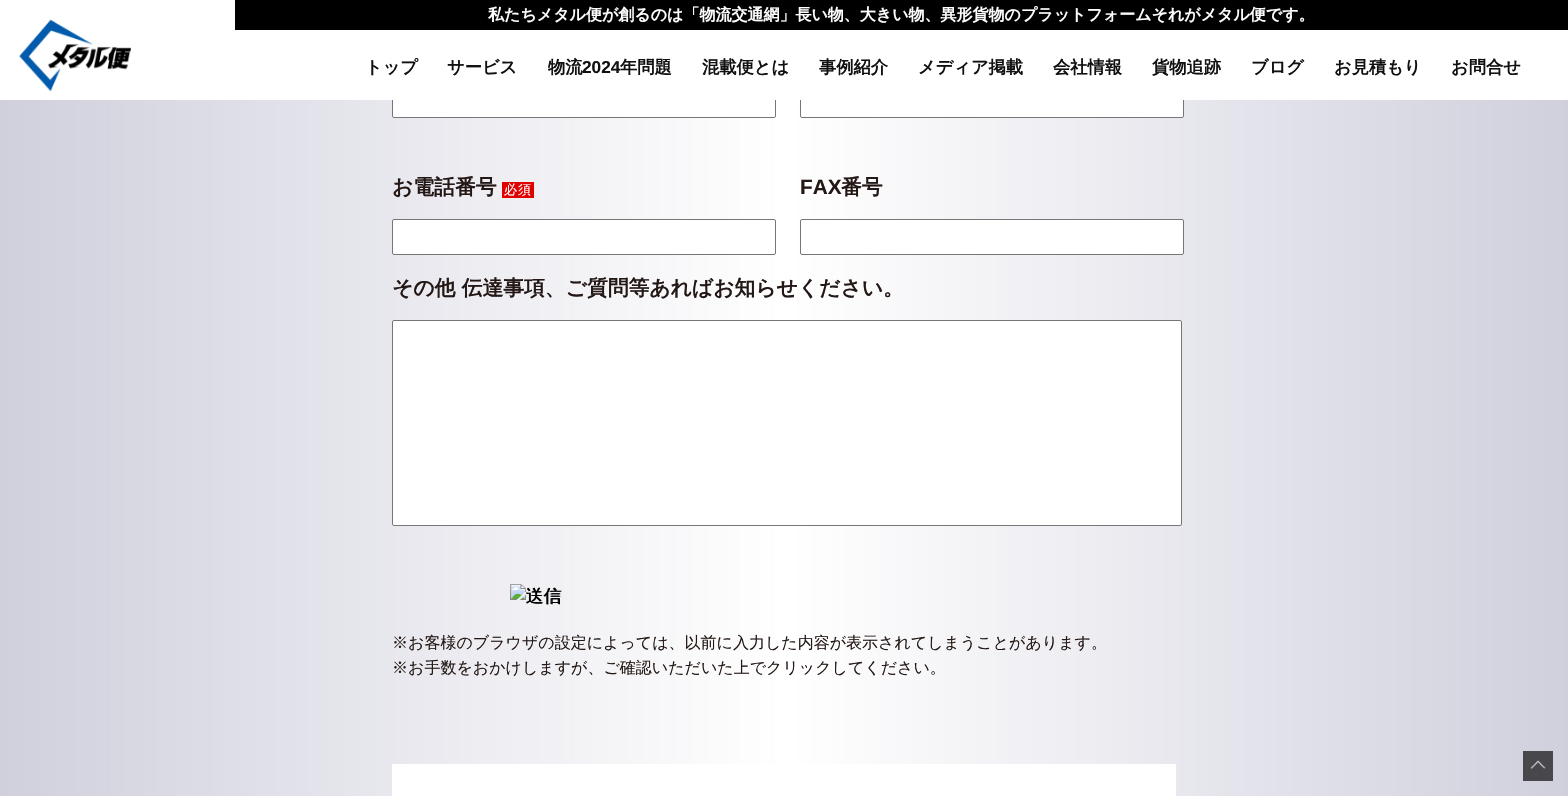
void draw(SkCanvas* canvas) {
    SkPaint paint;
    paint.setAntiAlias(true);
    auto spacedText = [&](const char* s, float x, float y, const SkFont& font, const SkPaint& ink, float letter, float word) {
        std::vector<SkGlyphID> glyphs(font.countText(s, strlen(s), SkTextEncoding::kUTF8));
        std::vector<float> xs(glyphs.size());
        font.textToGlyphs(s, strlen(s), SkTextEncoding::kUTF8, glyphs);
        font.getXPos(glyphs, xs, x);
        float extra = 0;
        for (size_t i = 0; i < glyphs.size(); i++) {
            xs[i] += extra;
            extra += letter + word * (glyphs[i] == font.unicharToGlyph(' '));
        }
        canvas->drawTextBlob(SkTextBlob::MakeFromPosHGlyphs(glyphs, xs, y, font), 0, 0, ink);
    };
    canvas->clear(0xFFFFFFFF);
    canvas->drawImageRect(SkImages::DeferredFromEncodedData(SkData::MakeFromFileName("img2.png")), SkRect::MakeXYWH(0, 100, 1568, 696), SkSamplingOptions());
    paint.setColor(0xFFFFFFFF);
    canvas->drawRoundRect(SkRect::MakeXYWH(392.5f, 82.5f, 383, 35), 1.5f, 1.5f, paint);
    paint.setStyle(SkPaint::kStroke_Style);
    paint.setStrokeWidth(1);
    paint.setColor(0xFF767676);
    canvas->drawRoundRect(SkRect::MakeXYWH(392.5f, 82.5f, 383, 35), 1.5f, 1.5f, paint);
    paint.setStyle(SkPaint::kFill_Style);
    paint.setColor(0xFFFFFFFF);
    canvas->drawRoundRect(SkRect::MakeXYWH(800.5f, 82.5f, 383, 35), 1.5f, 1.5f, paint);
    paint.setStyle(SkPaint::kStroke_Style);
    paint.setColor(0xFF767676);
    canvas->drawRoundRect(SkRect::MakeXYWH(800.5f, 82.5f, 383, 35), 1.5f, 1.5f, paint);
    paint.setStyle(SkPaint::kFill_Style);
    paint.setColor(0xFFFFFFFF);
    canvas->drawRect(SkRect::MakeXYWH(392, 82, 792, 18), paint);
    paint.setColor(0xFF000000);
    canvas->drawRect(SkRect::MakeXYWH(235, 0, 1333, 30), paint);
    SkFont font1(fontMgr->matchFamilyStyle("WenQuanYi Zen Hei", SkFontStyle::Bold()), 16);
    font1.setSubpixel(true);
    paint.setColor(0xFFFFFFFF);
    canvas->drawString("私たちメタル便が創るのは「物流交通網」長い物、大きい物、異形貨物のプラットフォームそれがメタル便です。", 488, 20, font1, paint);
    canvas->drawImageRect(SkImages::DeferredFromEncodedData(SkData::MakeFromFileName("img1.png")), SkRect::MakeXYWH(19, 19, 112, 73), SkSamplingOptions());
    SkFont font2(fontMgr->matchFamilyStyle("WenQuanYi Zen Hei", SkFontStyle::Bold()), 17.25f);
    font2.setSubpixel(true);
    paint.setColor(0xFF111111);
    canvas->drawString("トップ", 365, 73, font2, paint);
    canvas->drawString("サービス", 447, 73, font2, paint);
    canvas->drawString("物流", 548, 73, font2, paint);
    SkFont font3(fontMgr->matchFamilyStyle("Liberation Sans", SkFontStyle::Bold()), 17.25f);
    font3.setSubpixel(true);
    canvas->drawString("2024", 582, 73, font3, paint);
    canvas->drawString("年問題", 620, 73, font2, paint);
    canvas->drawString("混載便とは", 702, 73, font2, paint);
    canvas->drawString("事例紹介", 819, 73, font2, paint);
    canvas->drawString("メディア掲載", 918, 73, font2, paint);
    canvas->drawString("会社情報", 1053, 73, font2, paint);
    canvas->drawString("貨物追跡", 1152, 73, font2, paint);
    canvas->drawString("ブログ", 1251, 73, font2, paint);
    canvas->drawString("お見積もり", 1334, 73, font2, paint);
    canvas->drawString("お問合せ", 1451, 73, font2, paint);
    SkFont font4(fontMgr->matchFamilyStyle("WenQuanYi Zen Hei", SkFontStyle::Bold()), 20.8f);
    font4.setSubpixel(true);
    paint.setColor(0xFF231815);
    canvas->drawString("お電話番号", 392, 194, font4, paint);
    paint.setColor(0xFFE00000);
    canvas->drawRect(SkRect::MakeXYWH(502, 182, 32, 16), paint);
    SkFont font5(fontMgr->matchFamilyStyle("WenQuanYi Zen Hei", SkFontStyle(500, SkFontStyle::kNormal_Width, SkFontStyle::kUpright_Slant)), 13);
    font5.setSubpixel(true);
    paint.setColor(0xFFFFFFFF);
    spacedText("必須", 504, 194, font5, paint, 1, 0);
    canvas->drawRoundRect(SkRect::MakeXYWH(392.5f, 219.5f, 383, 35), 1.5f, 1.5f, paint);
    paint.setStyle(SkPaint::kStroke_Style);
    paint.setColor(0xFF767676);
    canvas->drawRoundRect(SkRect::MakeXYWH(392.5f, 219.5f, 383, 35), 1.5f, 1.5f, paint);
    SkFont font6(fontMgr->matchFamilyStyle("Liberation Sans", SkFontStyle::Bold()), 20.8f);
    font6.setSubpixel(true);
    paint.setStyle(SkPaint::kFill_Style);
    paint.setColor(0xFF231815);
    canvas->drawString("FAX", 800, 194, font6, paint);
    canvas->drawString("番号", 841, 194, font4, paint);
    paint.setColor(0xFFFFFFFF);
    canvas->drawRoundRect(SkRect::MakeXYWH(800.5f, 219.5f, 383, 35), 1.5f, 1.5f, paint);
    paint.setStyle(SkPaint::kStroke_Style);
    paint.setColor(0xFF767676);
    canvas->drawRoundRect(SkRect::MakeXYWH(800.5f, 219.5f, 383, 35), 1.5f, 1.5f, paint);
    paint.setStyle(SkPaint::kFill_Style);
    paint.setColor(0xFF231815);
    canvas->drawString("その他 伝達事項、ご質問等あればお知らせください。", 392, 295, font4, paint);
    paint.setColor(0xFFFFFFFF);
    canvas->drawRoundRect(SkRect::MakeXYWH(392.5f, 320.5f, 789, 205), 1.5f, 1.5f, paint);
    paint.setStyle(SkPaint::kStroke_Style);
    paint.setColor(0xFF767676);
    canvas->drawRoundRect(SkRect::MakeXYWH(392.5f, 320.5f, 789, 205), 1.5f, 1.5f, paint);
    canvas->drawImageRect(SkImages::DeferredFromEncodedData(SkData::MakeFromFileName("img3.png")), SkRect::MakeXYWH(510, 584, 51, 21), SkSamplingOptions());
    SkFont font7(fontMgr->matchFamilyStyle("WenQuanYi Zen Hei", SkFontStyle(500, SkFontStyle::kNormal_Width, SkFontStyle::kUpright_Slant)), 18);
    font7.setSubpixel(true);
    paint.setStyle(SkPaint::kFill_Style);
    paint.setColor(0xFF000000);
    canvas->drawString("送信", 526, 602, font7, paint);
    SkFont font8(fontMgr->matchFamilyStyle("WenQuanYi Zen Hei", SkFontStyle(500, SkFontStyle::kNormal_Width, SkFontStyle::kUpright_Slant)), 16);
    font8.setSubpixel(true);
    paint.setColor(0xFF231815);
    canvas->drawString("※お客様のブラウザの設定によっては、以前に入力した内容が表示されてしまうことがあります。", 392, 648, font8, paint);
    canvas->drawString("※お手数をおかけしますが、ご確認いただいた上でクリックしてください。", 392, 673, font8, paint);
    paint.setColor(0xFFFFFFFF);
    canvas->drawRect(SkRect::MakeXYWH(392, 764, 784, 32), paint);
    canvas->drawImageRect(SkImages::DeferredFromEncodedData(SkData::MakeFromFileName("img4.png")), SkRect::MakeXYWH(1523, 751, 30, 30), SkSamplingOptions());
}
